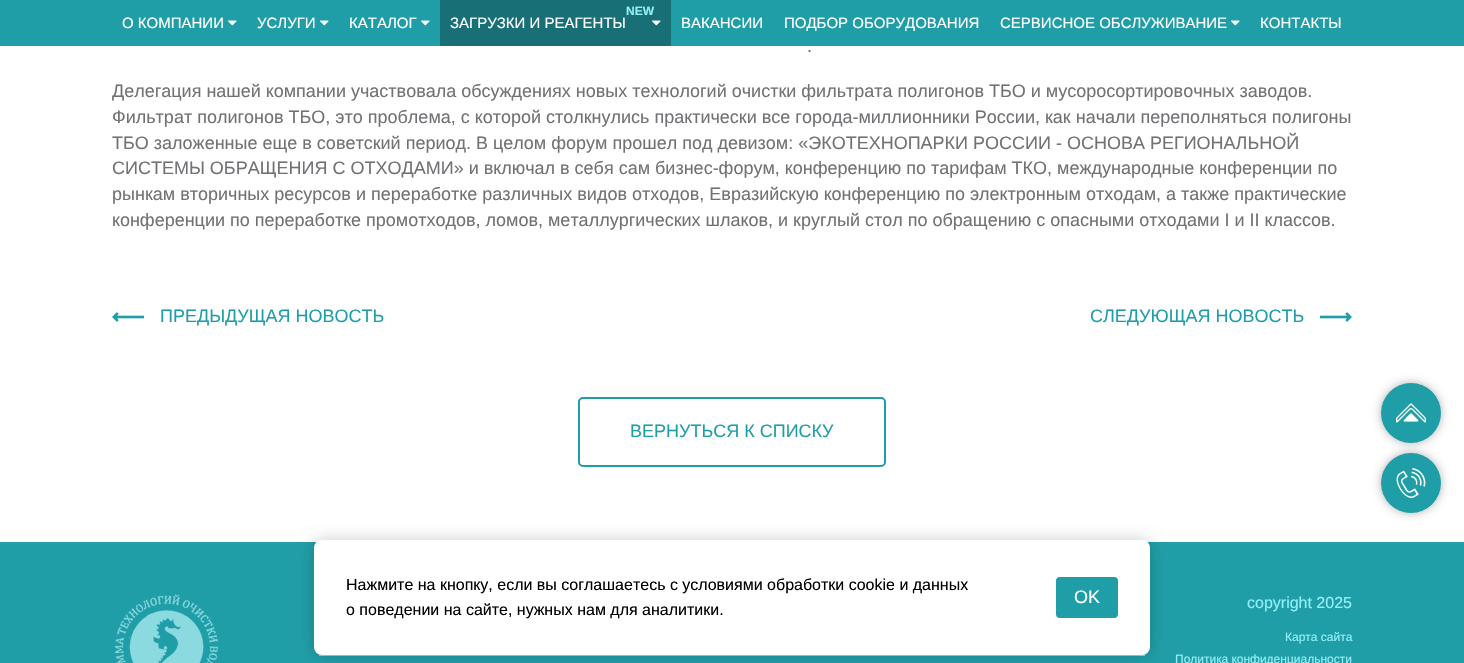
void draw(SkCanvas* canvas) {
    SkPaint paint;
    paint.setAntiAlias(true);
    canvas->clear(0xFFFFFFFF);
    paint.setColor(0xFF209EA7);
    canvas->drawRect(SkRect::MakeXYWH(0, 0, 1464, 46), paint);
    SkFont font1(fontMgr->matchFamilyStyle("Liberation Sans", SkFontStyle::Normal()), 15);
    font1.setSubpixel(true);
    paint.setColor(0xFFFFFFFF);
    canvas->drawString("О КОМПАНИИ", 122, 28, font1, paint);
    canvas->drawImageRect(SkImages::DeferredFromEncodedData(SkData::MakeFromFileName("img1.png")), SkRect::MakeXYWH(228, 20, 9, 6), SkSamplingOptions());
    canvas->drawString("УСЛУГИ", 257, 28, font1, paint);
    canvas->drawImageRect(SkImages::DeferredFromEncodedData(SkData::MakeFromFileName("img1.png")), SkRect::MakeXYWH(320, 20, 9, 6), SkSamplingOptions());
    canvas->drawString("КАТАЛОГ", 349, 28, font1, paint);
    canvas->drawImageRect(SkImages::DeferredFromEncodedData(SkData::MakeFromFileName("img1.png")), SkRect::MakeXYWH(421, 20, 9, 6), SkSamplingOptions());
    paint.setColor(0xFF187076);
    canvas->drawRect(SkRect::MakeXYWH(440, 0, 231, 46), paint);
    SkFont font2(fontMgr->matchFamilyStyle("Liberation Sans", SkFontStyle::Bold()), 12);
    font2.setSubpixel(true);
    paint.setColor(0xFF93EFF5);
    canvas->drawString("NEW", 626, 15, font2, paint);
    paint.setColor(0xFFFFFFFF);
    canvas->drawString("ЗАГРУЗКИ И РЕАГЕНТЫ", 450, 28, font1, paint);
    canvas->drawImageRect(SkImages::DeferredFromEncodedData(SkData::MakeFromFileName("img2.png")), SkRect::MakeXYWH(652, 20, 9, 6), SkSamplingOptions());
    canvas->drawString("ВАКАНСИИ", 681, 28, font1, paint);
    canvas->drawString("ПОДБОР ОБОРУДОВАНИЯ", 784, 28, font1, paint);
    canvas->drawString("СЕРВИСНОЕ ОБСЛУЖИВАНИЕ", 1000, 28, font1, paint);
    canvas->drawImageRect(SkImages::DeferredFromEncodedData(SkData::MakeFromFileName("img1.png")), SkRect::MakeXYWH(1231, 20, 9, 6), SkSamplingOptions());
    canvas->drawString("КОНТАКТЫ", 1260, 28, font1, paint);
    SkFont font3(fontMgr->matchFamilyStyle("Liberation Sans", SkFontStyle::Normal()), 18);
    font3.setSubpixel(true);
    paint.setColor(0xFF717275);
    canvas->drawString(".", 807, 52, font3, paint);
    canvas->drawString("Делегация нашей компании участвовала обсуждениях новых технологий очистки фильтрата полигонов ТБО и мусоросортировочных заводов.", 112, 97, font3, paint);
    canvas->drawString("Фильтрат полигонов ТБО, это проблема, с которой столкнулись практически все города-миллионники России, как начали переполняться полигоны", 112, 123, font3, paint);
    canvas->drawString("ТБО заложенные еще в советский период. В целом форум прошел под девизом: «ЭКОТЕХНОПАРКИ РОССИИ - ОСНОВА РЕГИОНАЛЬНОЙ", 112, 149, font3, paint);
    canvas->drawString("СИСТЕМЫ ОБРАЩЕНИЯ С ОТХОДАМИ» и включал в себя сам бизнес-форум, конференцию по тарифам ТКО, международные конференции по", 112, 174, font3, paint);
    canvas->drawString("рынкам вторичных ресурсов и переработке различных видов отходов, Евразийскую конференцию по электронным отходам, а также практические", 112, 200, font3, paint);
    canvas->drawString("конференции по переработке промотходов, ломов, металлургических шлаков, и круглый стол по обращению с опасными отходами I и II классов.", 112, 226, font3, paint);
    canvas->drawImageRect(SkImages::DeferredFromEncodedData(SkData::MakeFromFileName("img3.png")), SkRect::MakeXYWH(112, 312, 32, 10), SkSamplingOptions());
    paint.setColor(0xFF209EA7);
    canvas->drawString("ПРЕДЫДУЩАЯ НОВОСТЬ", 160, 322, font3, paint);
    canvas->drawString("СЛЕДУЮЩАЯ НОВОСТЬ", 1090, 322, font3, paint);
    canvas->drawImageRect(SkImages::DeferredFromEncodedData(SkData::MakeFromFileName("img4.png")), SkRect::MakeXYWH(1320, 312, 32, 10), SkSamplingOptions());
    paint.setStyle(SkPaint::kStroke_Style);
    paint.setStrokeWidth(2);
    canvas->drawRoundRect(SkRect::MakeXYWH(579, 398, 306, 68), 4, 4, paint);
    paint.setStyle(SkPaint::kFill_Style);
    canvas->drawString("ВЕРНУТЬСЯ К СПИСКУ", 630, 437, font3, paint);
    paint.setColor(0x4D000000);
    paint.setMaskFilter(SkMaskFilter::MakeBlur(kNormal_SkBlurStyle, 5));
    canvas->drawRoundRect(SkRect::MakeXYWH(1381, 383, 60, 60), 30, 30, paint);
    paint.setMaskFilter(nullptr);
    paint.setColor(0xFF209EA7);
    canvas->drawCircle(1411, 413, 30, paint);
    canvas->drawImageRect(SkImages::DeferredFromEncodedData(SkData::MakeFromFileName("img5.png")), SkRect::MakeXYWH(1396, 403, 30, 20), SkSamplingOptions());
    paint.setColor(0x4D000000);
    paint.setMaskFilter(SkMaskFilter::MakeBlur(kNormal_SkBlurStyle, 5));
    canvas->drawRoundRect(SkRect::MakeXYWH(1381, 453, 60, 60), 30, 30, paint);
    paint.setMaskFilter(nullptr);
    paint.setColor(0xFF209EA7);
    canvas->drawCircle(1411, 483, 30, paint);
    canvas->drawImageRect(SkImages::DeferredFromEncodedData(SkData::MakeFromFileName("img6.png")), SkRect::MakeXYWH(1396, 468, 30, 30), SkSamplingOptions());
    canvas->drawRect(SkRect::MakeXYWH(0, 542, 1464, 121), paint);
    paint.setColor(0xFF8ADADF);
    canvas->drawRect(SkRect::MakeXYWH(319, 655, 826, 1), paint);
    paint.setColor(0x33000000);
    paint.setMaskFilter(SkMaskFilter::MakeBlur(kNormal_SkBlurStyle, 8));
    canvas->drawRoundRect(SkRect::MakeXYWH(314, 540, 836, 115), 8, 8, paint);
    paint.setMaskFilter(nullptr);
    paint.setColor(0xFFFFFFFF);
    canvas->drawRoundRect(SkRect::MakeXYWH(314, 540, 836, 115), 8, 8, paint);
    SkFont font4(fontMgr->matchFamilyStyle("Liberation Sans", SkFontStyle::Normal()), 16);
    font4.setSubpixel(true);
    paint.setColor(0xFF000000);
    canvas->drawString("Нажмите на кнопку, если вы соглашаетесь с условиями обработки cookie и данных", 346, 590, font4, paint);
    canvas->drawString("о поведении на сайте, нужных нам для аналитики.", 346, 615, font4, paint);
    paint.setColor(0xFF209EA7);
    canvas->drawRoundRect(SkRect::MakeXYWH(1056, 577, 62, 41), 4, 4, paint);
    paint.setColor(0xFFFFFFFF);
    canvas->drawString("OK", 1074, 603, font3, paint);
    canvas->drawImageRect(SkImages::DeferredFromEncodedData(SkData::MakeFromFileName("img7.png")), SkRect::MakeXYWH(115, 594, 103, 69), SkSamplingOptions());
    paint.setColor(0xFF93EFF5);
    canvas->drawString("copyright 2025", 1247, 608, font4, paint);
    SkFont font5(fontMgr->matchFamilyStyle("Liberation Sans", SkFontStyle::Normal()), 12);
    font5.setSubpixel(true);
    canvas->drawString("Карта сайта", 1285, 641, font5, paint);
    canvas->drawString("Политика конфиденциальности", 1175, 663, font5, paint);
}
